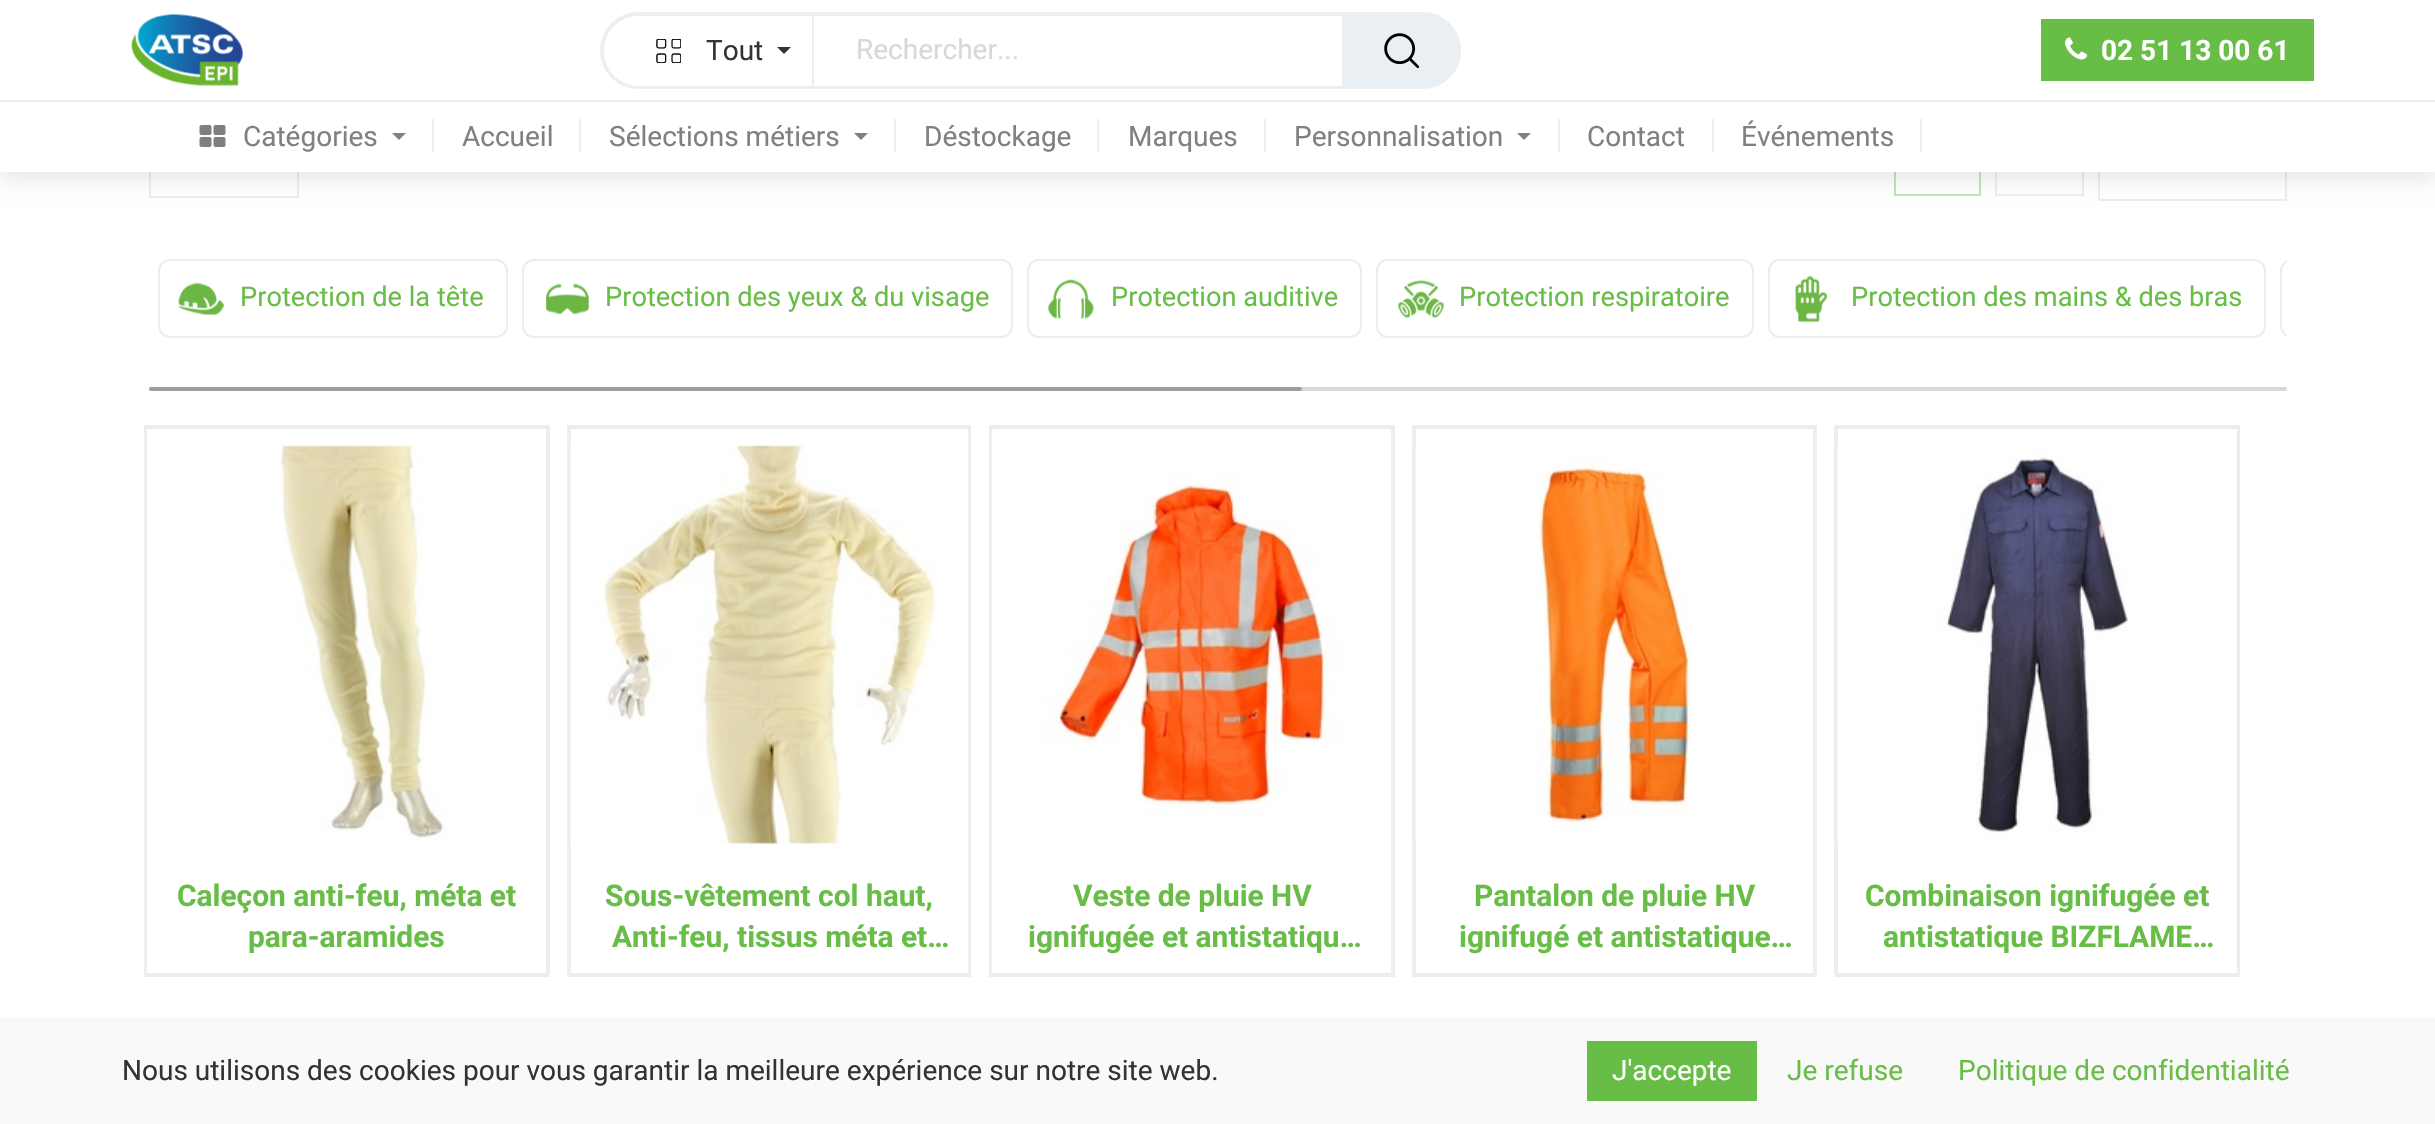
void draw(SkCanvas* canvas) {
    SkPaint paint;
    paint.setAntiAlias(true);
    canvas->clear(0xFFFFFFFF);
    paint.setStyle(SkPaint::kStroke_Style);
    paint.setStrokeWidth(2);
    paint.setColor(0xFFEDEDED);
    canvas->drawRect(SkRect::MakeXYWH(150, 108, 148, 89), paint);
    paint.setColor(0xFFC2E5B5);
    canvas->drawRect(SkRect::MakeXYWH(1895, 111, 85, 84), paint);
    paint.setColor(0xFFEDEDED);
    canvas->drawRect(SkRect::MakeXYWH(1996, 111, 87, 84), paint);
    canvas->drawRect(SkRect::MakeXYWH(2099, 111, 187, 89), paint);
    paint.setStyle(SkPaint::kFill_Style);
    paint.setColor(0x1A000000);
    paint.setMaskFilter(SkMaskFilter::MakeBlur(kNormal_SkBlurStyle, 10.5f));
    canvas->drawRect(SkRect::MakeXYWH(0, 7, 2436, 172), paint);
    paint.setMaskFilter(nullptr);
    paint.setColor(0xFFFFFFFF);
    canvas->drawRect(SkRect::MakeXYWH(0, 0, 2435, 172), paint);
    canvas->drawImageRect(SkImages::DeferredFromEncodedData(SkData::MakeFromFileName("img1.png")), SkRect::MakeXYWH(131, 14, 112, 72), SkSamplingOptions());
    paint.setStyle(SkPaint::kStroke_Style);
    paint.setStrokeWidth(4);
    paint.setColor(0xFFEAEFF3);
    canvas->drawRoundRect(SkRect::MakeXYWH(602, 14, 857, 73), 36.5f, 36.5f, paint);
    paint.setStyle(SkPaint::kFill_Style);
    paint.setColor(0xFFFFFFFF);
    canvas->drawPath(SkPathBuilder().moveTo(639, 16).lineTo(828, 16).lineTo(828, 86).lineTo(639, 86).cubicTo(619.5f, 86, 604, 70.5f, 604, 51).cubicTo(604, 31.5f, 619.5f, 16, 639, 16).close().detach(), paint);
    paint.setColor(0xFFEDEDED);
    canvas->drawRect(SkRect::MakeXYWH(812, 16, 2, 70), paint);
    canvas->drawImageRect(SkImages::DeferredFromEncodedData(SkData::MakeFromFileName("img2.png")), SkRect::MakeXYWH(656, 39, 25, 24), SkSamplingOptions());
    SkFont font1(fontMgr->matchFamilyStyle("Roboto", SkFontStyle::Normal()), 28);
    font1.setSubpixel(true);
    paint.setColor(0xFF333333);
    canvas->drawString("Tout", 706, 60, font1, paint);
    canvas->drawPath(SkPathBuilder().moveTo(777, 47).lineTo(791, 47).lineTo(784, 54).close().detach(), paint);
    paint.setColor(0xFFFFFFFF);
    canvas->drawPath(SkPathBuilder().moveTo(828, 16).lineTo(1423, 16).cubicTo(1442.5f, 16, 1458, 31.5f, 1458, 51).cubicTo(1458, 70.5f, 1442.5f, 86, 1423, 86).lineTo(828, 86).close().detach(), paint);
    paint.setColor(0xFFD8D8D8);
    canvas->drawString("Rechercher...", 856, 59, font1, paint);
    paint.setColor(0xFFEAEFF3);
    canvas->drawPath(SkPathBuilder().moveTo(1342, 16).lineTo(1426, 16).cubicTo(1445.5f, 16, 1461, 31.5f, 1461, 51).cubicTo(1461, 70.5f, 1445.5f, 86, 1426, 86).lineTo(1342, 86).close().detach(), paint);
    canvas->drawImageRect(SkImages::DeferredFromEncodedData(SkData::MakeFromFileName("img3.png")), SkRect::MakeXYWH(1384, 33, 35, 35), SkSamplingOptions());
    paint.setColor(0xFF67BD45);
    canvas->drawRect(SkRect::MakeXYWH(2041, 19, 273, 62), paint);
    canvas->drawImageRect(SkImages::DeferredFromEncodedData(SkData::MakeFromFileName("img4.png")), SkRect::MakeXYWH(2065, 37, 22, 23), SkSamplingOptions());
    SkFont font2(fontMgr->matchFamilyStyle("Roboto", SkFontStyle::Bold()), 28);
    font2.setSubpixel(true);
    paint.setColor(0xFFFFFFFF);
    canvas->drawString("02 51 13 00 61", 2101, 60, font2, paint);
    paint.setColor(0xFFEDEDED);
    canvas->drawRect(SkRect::MakeXYWH(0, 100, 2435, 2), paint);
    canvas->drawImageRect(SkImages::DeferredFromEncodedData(SkData::MakeFromFileName("img5.png")), SkRect::MakeXYWH(199, 125, 27, 22), SkSamplingOptions());
    paint.setColor(0xFF808080);
    canvas->drawString("Catégories", 243, 146, font1, paint);
    canvas->drawPath(SkPathBuilder().moveTo(392, 133).lineTo(406, 133).lineTo(399, 140).close().detach(), paint);
    paint.setColor(0xFFEDEDED);
    canvas->drawRect(SkRect::MakeXYWH(432, 119, 2, 33), paint);
    paint.setColor(0xFF808080);
    canvas->drawString("Accueil", 462, 146, font1, paint);
    paint.setColor(0xFFEDEDED);
    canvas->drawRect(SkRect::MakeXYWH(579, 119, 2, 33), paint);
    paint.setColor(0xFF808080);
    canvas->drawString("Sélections métiers", 609, 146, font1, paint);
    canvas->drawPath(SkPathBuilder().moveTo(854, 133).lineTo(868, 133).lineTo(861, 140).close().detach(), paint);
    paint.setColor(0xFFEDEDED);
    canvas->drawRect(SkRect::MakeXYWH(894, 119, 2, 33), paint);
    paint.setColor(0xFF808080);
    canvas->drawString("Déstockage", 924, 146, font1, paint);
    paint.setColor(0xFFEDEDED);
    canvas->drawRect(SkRect::MakeXYWH(1097, 119, 2, 33), paint);
    paint.setColor(0xFF808080);
    canvas->drawString("Marques", 1128, 146, font1, paint);
    paint.setColor(0xFFEDEDED);
    canvas->drawRect(SkRect::MakeXYWH(1264, 119, 2, 33), paint);
    paint.setColor(0xFF808080);
    canvas->drawString("Personnalisation", 1294, 146, font1, paint);
    canvas->drawPath(SkPathBuilder().moveTo(1517, 133).lineTo(1531, 133).lineTo(1524, 140).close().detach(), paint);
    paint.setColor(0xFFEDEDED);
    canvas->drawRect(SkRect::MakeXYWH(1558, 119, 2, 33), paint);
    paint.setColor(0xFF808080);
    canvas->drawString("Contact", 1587, 146, font1, paint);
    paint.setColor(0xFFEDEDED);
    canvas->drawRect(SkRect::MakeXYWH(1712, 119, 2, 33), paint);
    paint.setColor(0xFF808080);
    canvas->drawString("Événements", 1741, 146, font1, paint);
    paint.setColor(0xFFEDEDED);
    canvas->drawRect(SkRect::MakeXYWH(1920, 119, 2, 33), paint);
    paint.setStyle(SkPaint::kStroke_Style);
    paint.setStrokeWidth(2);
    canvas->drawRoundRect(SkRect::MakeXYWH(159, 260, 348, 77), 11, 11, paint);
    canvas->drawImageRect(SkImages::DeferredFromEncodedData(SkData::MakeFromFileName("img6.png")), SkRect::MakeXYWH(178, 282, 46, 33), SkSamplingOptions());
    SkFont font3(fontMgr->matchFamilyStyle("Roboto", SkFontStyle::Normal()), 27.2f);
    font3.setSubpixel(true);
    paint.setStyle(SkPaint::kFill_Style);
    paint.setColor(0xFF67BD45);
    canvas->drawString("Protection de la tête", 240, 306, font3, paint);
    paint.setStyle(SkPaint::kStroke_Style);
    paint.setColor(0xFFEDEDED);
    canvas->drawRoundRect(SkRect::MakeXYWH(523, 260, 489, 77), 11, 11, paint);
    canvas->drawImageRect(SkImages::DeferredFromEncodedData(SkData::MakeFromFileName("img7.png")), SkRect::MakeXYWH(546, 283, 43, 32), SkSamplingOptions());
    paint.setStyle(SkPaint::kFill_Style);
    paint.setColor(0xFF67BD45);
    canvas->drawString("Protection des yeux & du visage", 605, 306, font3, paint);
    paint.setStyle(SkPaint::kStroke_Style);
    paint.setColor(0xFFEDEDED);
    canvas->drawRoundRect(SkRect::MakeXYWH(1028, 260, 333, 77), 11, 11, paint);
    canvas->drawImageRect(SkImages::DeferredFromEncodedData(SkData::MakeFromFileName("img8.png")), SkRect::MakeXYWH(1048, 279, 46, 40), SkSamplingOptions());
    paint.setStyle(SkPaint::kFill_Style);
    paint.setColor(0xFF67BD45);
    canvas->drawString("Protection auditive", 1111, 306, font3, paint);
    paint.setStyle(SkPaint::kStroke_Style);
    paint.setColor(0xFFEDEDED);
    canvas->drawRoundRect(SkRect::MakeXYWH(1377, 260, 376, 77), 11, 11, paint);
    canvas->drawImageRect(SkImages::DeferredFromEncodedData(SkData::MakeFromFileName("img9.png")), SkRect::MakeXYWH(1398, 280, 46, 38), SkSamplingOptions());
    paint.setStyle(SkPaint::kFill_Style);
    paint.setColor(0xFF67BD45);
    canvas->drawString("Protection respiratoire", 1459, 306, font3, paint);
    paint.setStyle(SkPaint::kStroke_Style);
    paint.setColor(0xFFEDEDED);
    canvas->drawRoundRect(SkRect::MakeXYWH(1769, 260, 496, 77), 11, 11, paint);
    canvas->drawImageRect(SkImages::DeferredFromEncodedData(SkData::MakeFromFileName("img10.png")), SkRect::MakeXYWH(1795, 275, 32, 47), SkSamplingOptions());
    paint.setStyle(SkPaint::kFill_Style);
    paint.setColor(0xFF67BD45);
    canvas->drawString("Protection des mains & des bras", 1851, 306, font3, paint);
    canvas->save();
    canvas->clipRect(SkRect::MakeXYWH(158, 243, 2129, 107));
    paint.setStyle(SkPaint::kStroke_Style);
    paint.setColor(0xFFEDEDED);
    canvas->drawRoundRect(SkRect::MakeXYWH(2281, 260, 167, 77), 11, 11, paint);
    canvas->restore();
    paint.setStyle(SkPaint::kFill_Style);
    paint.setColor(0xFFD9D9D9);
    canvas->drawRoundRect(SkRect::MakeXYWH(149, 387, 2138, 4), 2, 2, paint);
    paint.setColor(0xFFA09E9E);
    canvas->drawRoundRect(SkRect::MakeXYWH(149, 387, 1153, 4), 2, 2, paint);
    paint.setStyle(SkPaint::kStroke_Style);
    paint.setColor(0xFFEDEDED);
    canvas->drawRect(SkRect::MakeXYWH(145, 426, 404, 550), paint);
    canvas->drawRect(SkRect::MakeXYWH(146, 428, 401, 546), paint);
    canvas->drawImageRect(SkImages::DeferredFromEncodedData(SkData::MakeFromFileName("img11.png")), SkRect::MakeXYWH(276, 445, 170, 398), SkSamplingOptions());
    SkFont font4(fontMgr->matchFamilyStyle("Roboto", SkFontStyle::Bold()), 29.9f);
    font4.setSubpixel(true);
    paint.setStyle(SkPaint::kFill_Style);
    paint.setColor(0xFF67BD45);
    canvas->drawString("Caleçon anti-feu, méta et", 177, 906, font4, paint);
    canvas->drawString("para-aramides", 248, 947, font4, paint);
    paint.setStyle(SkPaint::kStroke_Style);
    paint.setColor(0xFFEDEDED);
    canvas->drawRect(SkRect::MakeXYWH(568, 426, 402, 550), paint);
    canvas->drawRect(SkRect::MakeXYWH(570, 428, 399, 546), paint);
    canvas->drawImageRect(SkImages::DeferredFromEncodedData(SkData::MakeFromFileName("img12.png")), SkRect::MakeXYWH(570, 445, 367, 399), SkSamplingOptions());
    paint.setStyle(SkPaint::kFill_Style);
    paint.setColor(0xFF67BD45);
    canvas->drawString("Sous-vêtement col haut,", 605, 906, font4, paint);
    canvas->drawString("Anti-feu, tissus méta et…", 612, 947, font4, paint);
    paint.setStyle(SkPaint::kStroke_Style);
    paint.setColor(0xFFEDEDED);
    canvas->drawRect(SkRect::MakeXYWH(990, 426, 404, 550), paint);
    canvas->drawRect(SkRect::MakeXYWH(992, 428, 400, 546), paint);
    paint.setStyle(SkPaint::kFill_Style);
    paint.setColor(0xE6FFFFFF);
    canvas->drawRect(SkRect::MakeXYWH(992, 429, 1, 434), paint);
    canvas->drawImageRect(SkImages::DeferredFromEncodedData(SkData::MakeFromFileName("img13.png")), SkRect::MakeXYWH(1042, 447, 350, 395), SkSamplingOptions());
    canvas->drawRect(SkRect::MakeXYWH(992, 863, 1, 110), paint);
    paint.setColor(0xFF67BD45);
    canvas->drawString("Veste de pluie HV", 1073, 906, font4, paint);
    canvas->drawString("ignifugée et antistatiqu…", 1028, 947, font4, paint);
    paint.setStyle(SkPaint::kStroke_Style);
    paint.setColor(0xFFEDEDED);
    canvas->drawRect(SkRect::MakeXYWH(1413, 426, 403, 550), paint);
    canvas->drawRect(SkRect::MakeXYWH(1415, 428, 399, 546), paint);
    canvas->drawImageRect(SkImages::DeferredFromEncodedData(SkData::MakeFromFileName("img14.png")), SkRect::MakeXYWH(1415, 447, 276, 395), SkSamplingOptions());
    paint.setStyle(SkPaint::kFill_Style);
    paint.setColor(0xFF67BD45);
    canvas->drawString("Pantalon de pluie HV", 1474, 906, font4, paint);
    canvas->drawString("ignifugé et antistatique…", 1459, 947, font4, paint);
    paint.setStyle(SkPaint::kStroke_Style);
    paint.setColor(0xFFEDEDED);
    canvas->drawRect(SkRect::MakeXYWH(1835, 426, 404, 550), paint);
    canvas->drawRect(SkRect::MakeXYWH(1837, 428, 400, 546), paint);
    paint.setStyle(SkPaint::kFill_Style);
    paint.setColor(0xE6FFFFFF);
    canvas->drawRect(SkRect::MakeXYWH(2236, 429, 1, 434), paint);
    canvas->drawImageRect(SkImages::DeferredFromEncodedData(SkData::MakeFromFileName("img15.png")), SkRect::MakeXYWH(1837, 446, 293, 397), SkSamplingOptions());
    canvas->drawRect(SkRect::MakeXYWH(2236, 863, 1, 110), paint);
    paint.setColor(0xFF67BD45);
    canvas->drawString("Combinaison ignifugée et", 1865, 906, font4, paint);
    canvas->drawString("antistatique BIZFLAME…", 1883, 947, font4, paint);
    paint.setColor(0xFFF9F9F9);
    canvas->drawRect(SkRect::MakeXYWH(0, 1017, 2435, 107), paint);
    paint.setColor(0xFF333333);
    canvas->drawString("Nous utilisons des cookies pour vous garantir la meilleure expérience sur notre site web.", 122, 1080, font1, paint);
    paint.setColor(0xFF67BD45);
    canvas->drawRect(SkRect::MakeXYWH(1587, 1041, 170, 60), paint);
    paint.setColor(0xFFFFFFFF);
    canvas->drawString("J'accepte", 1612, 1080, font1, paint);
    paint.setColor(0xFF67BD45);
    canvas->drawString("Je refuse", 1787, 1080, font1, paint);
    canvas->drawString("Politique de confidentialité", 1958, 1080, font1, paint);
}
